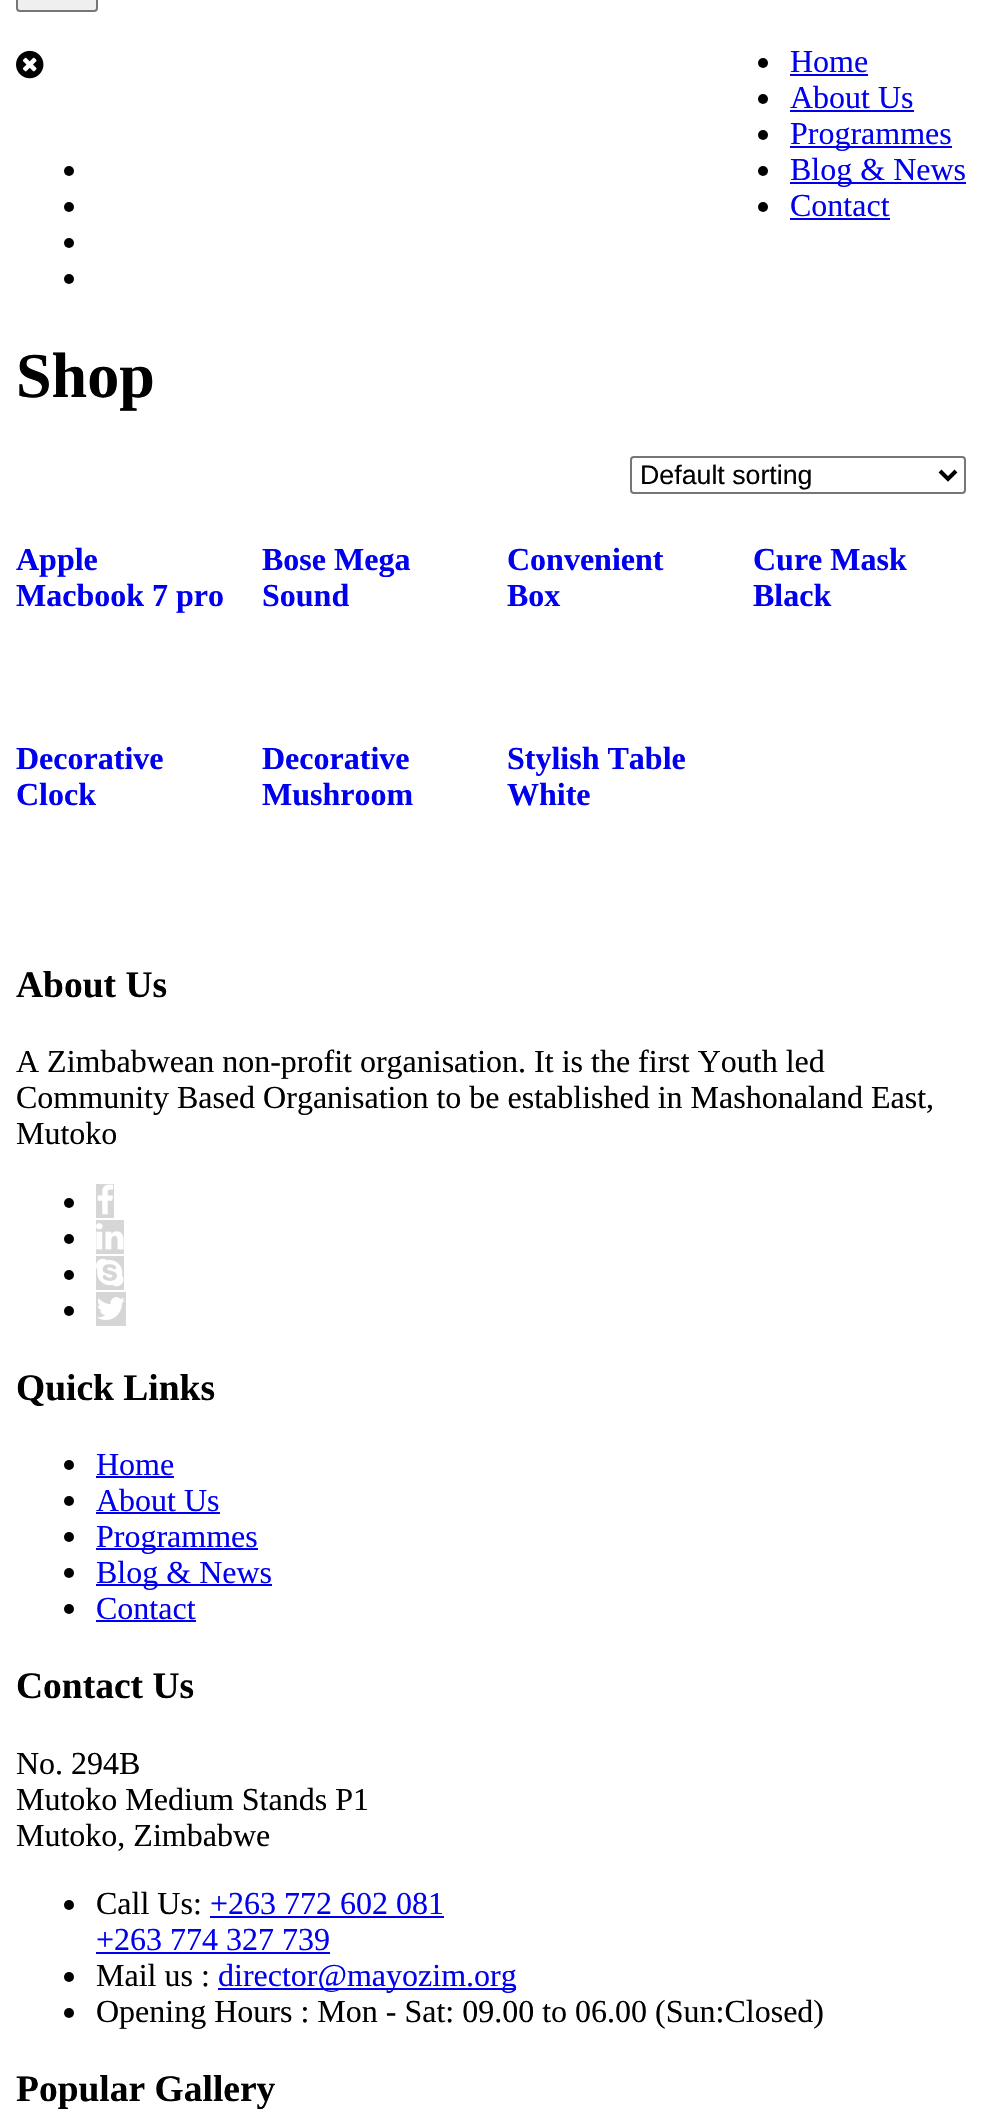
void draw(SkCanvas* canvas) {
    SkPaint paint;
    paint.setAntiAlias(true);
    canvas->clear(0xFFFFFFFF);
    paint.setColor(0xFFEFEFEF);
    canvas->drawRoundRect(SkRect::MakeXYWH(17, -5, 80, 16), 3, 3, paint);
    paint.setStyle(SkPaint::kStroke_Style);
    paint.setStrokeWidth(2);
    paint.setColor(0xFF767676);
    canvas->drawRoundRect(SkRect::MakeXYWH(17, -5, 80, 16), 3, 3, paint);
    canvas->drawImageRect(SkImages::DeferredFromEncodedData(SkData::MakeFromFileName("img1.png")), SkRect::MakeXYWH(16, 50, 28, 29), SkSamplingOptions());
    paint.setStyle(SkPaint::kFill_Style);
    paint.setColor(0xFF000000);
    canvas->drawCircle(69, 171, 5, paint);
    canvas->drawCircle(69, 207, 5, paint);
    canvas->drawCircle(69, 243, 5, paint);
    canvas->drawCircle(69, 279, 5, paint);
    canvas->drawCircle(763, 63, 5, paint);
    SkFont font1(fontMgr->matchFamilyStyle("Liberation Serif", SkFontStyle::Normal()), 32);
    font1.setSubpixel(true);
    paint.setColor(0xFF0000EE);
    canvas->drawString("Home", 790, 72, font1, paint);
    canvas->drawRect(SkRect::MakeXYWH(790, 74, 78, 2), paint);
    paint.setColor(0xFF000000);
    canvas->drawCircle(763, 99, 5, paint);
    paint.setColor(0xFF0000EE);
    canvas->drawString("About Us", 790, 108, font1, paint);
    canvas->drawRect(SkRect::MakeXYWH(790, 110, 124, 2), paint);
    paint.setColor(0xFF000000);
    canvas->drawCircle(763, 135, 5, paint);
    paint.setColor(0xFF0000EE);
    canvas->drawRect(SkRect::MakeXYWH(790, 146, 162, 2), paint);
    canvas->drawString("Programmes", 790, 144, font1, paint);
    paint.setColor(0xFF000000);
    canvas->drawCircle(763, 171, 5, paint);
    paint.setColor(0xFF0000EE);
    canvas->drawRect(SkRect::MakeXYWH(790, 182, 176, 2), paint);
    canvas->drawString("Blog & News", 790, 180, font1, paint);
    paint.setColor(0xFF000000);
    canvas->drawCircle(763, 207, 5, paint);
    paint.setColor(0xFF0000EE);
    canvas->drawString("Contact", 790, 216, font1, paint);
    canvas->drawRect(SkRect::MakeXYWH(790, 218, 100, 2), paint);
    SkFont font2(fontMgr->matchFamilyStyle("Liberation Serif", SkFontStyle::Bold()), 64);
    font2.setSubpixel(true);
    paint.setColor(0xFF000000);
    canvas->drawString("Shop", 16, 397, font2, paint);
    paint.setStyle(SkPaint::kStroke_Style);
    paint.setColor(0xFF767676);
    canvas->drawRoundRect(SkRect::MakeXYWH(631, 457, 334, 36), 3, 3, paint);
    paint.setStrokeWidth(4);
    paint.setColor(0xFF000000);
    canvas->drawPath(SkPathBuilder().moveTo(940, 471).lineTo(948, 479).lineTo(956, 471).detach(), paint);
    SkFont font3(fontMgr->matchFamilyStyle("Liberation Sans", SkFontStyle::Normal()), 26.75f);
    font3.setSubpixel(true);
    paint.setStyle(SkPaint::kFill_Style);
    canvas->drawString("Default sorting", 640, 484, font3, paint);
    SkFont font4(fontMgr->matchFamilyStyle("Liberation Serif", SkFontStyle::Bold()), 32);
    font4.setSubpixel(true);
    paint.setColor(0xFF0000EE);
    canvas->drawString("Apple", 16, 570, font4, paint);
    canvas->drawString("Macbook 7 pro", 16, 606, font4, paint);
    canvas->drawString("Bose Mega", 262, 570, font4, paint);
    canvas->drawString("Sound", 262, 606, font4, paint);
    canvas->drawString("Convenient", 507, 570, font4, paint);
    canvas->drawString("Box", 507, 606, font4, paint);
    canvas->drawString("Cure Mask", 753, 570, font4, paint);
    canvas->drawString("Black", 753, 606, font4, paint);
    canvas->drawString("Decorative", 16, 769, font4, paint);
    canvas->drawString("Clock", 16, 805, font4, paint);
    canvas->drawString("Decorative", 262, 769, font4, paint);
    canvas->drawString("Mushroom", 262, 805, font4, paint);
    canvas->drawString("Stylish Table", 507, 769, font4, paint);
    canvas->drawString("White", 507, 805, font4, paint);
    SkFont font5(fontMgr->matchFamilyStyle("Liberation Serif", SkFontStyle::Bold()), 37.5f);
    font5.setSubpixel(true);
    paint.setColor(0xFF000000);
    canvas->drawString("About Us", 16, 997, font5, paint);
    canvas->drawString("A Zimbabwean non-profit organisation. It is the first Youth led", 16, 1072, font1, paint);
    canvas->drawString("Community Based Organisation to be established in Mashonaland East,", 16, 1108, font1, paint);
    canvas->drawString("Mutoko", 16, 1144, font1, paint);
    canvas->drawCircle(69, 1203, 5, paint);
    paint.setColor(0xFFD6D6D6);
    canvas->drawRect(SkRect::MakeXYWH(96, 1184, 18, 34), paint);
    canvas->drawImageRect(SkImages::DeferredFromEncodedData(SkData::MakeFromFileName("img2.png")), SkRect::MakeXYWH(97, 1184, 17, 31), SkSamplingOptions());
    paint.setColor(0xFF000000);
    canvas->drawCircle(69, 1239, 5, paint);
    paint.setColor(0xFFD6D6D6);
    canvas->drawRect(SkRect::MakeXYWH(96, 1220, 28, 34), paint);
    canvas->drawImageRect(SkImages::DeferredFromEncodedData(SkData::MakeFromFileName("img3.png")), SkRect::MakeXYWH(96, 1223, 28, 27), SkSamplingOptions());
    paint.setColor(0xFF000000);
    canvas->drawCircle(69, 1275, 5, paint);
    paint.setColor(0xFFD6D6D6);
    canvas->drawRect(SkRect::MakeXYWH(96, 1256, 28, 34), paint);
    canvas->drawImageRect(SkImages::DeferredFromEncodedData(SkData::MakeFromFileName("img4.png")), SkRect::MakeXYWH(96, 1258, 28, 29), SkSamplingOptions());
    paint.setColor(0xFF000000);
    canvas->drawCircle(69, 1311, 5, paint);
    paint.setColor(0xFFD6D6D6);
    canvas->drawRect(SkRect::MakeXYWH(96, 1292, 30, 34), paint);
    canvas->drawImageRect(SkImages::DeferredFromEncodedData(SkData::MakeFromFileName("img5.png")), SkRect::MakeXYWH(97, 1297, 28, 23), SkSamplingOptions());
    paint.setColor(0xFF000000);
    canvas->drawString("Quick Links", 16, 1400, font5, paint);
    canvas->drawCircle(69, 1465, 5, paint);
    paint.setColor(0xFF0000EE);
    canvas->drawString("Home", 96, 1475, font1, paint);
    canvas->drawRect(SkRect::MakeXYWH(96, 1476, 78, 2), paint);
    paint.setColor(0xFF000000);
    canvas->drawCircle(69, 1501, 5, paint);
    paint.setColor(0xFF0000EE);
    canvas->drawString("About Us", 96, 1511, font1, paint);
    canvas->drawRect(SkRect::MakeXYWH(96, 1512, 124, 2), paint);
    paint.setColor(0xFF000000);
    canvas->drawCircle(69, 1537, 5, paint);
    paint.setColor(0xFF0000EE);
    canvas->drawRect(SkRect::MakeXYWH(96, 1548, 162, 2), paint);
    canvas->drawString("Programmes", 96, 1547, font1, paint);
    paint.setColor(0xFF000000);
    canvas->drawCircle(69, 1573, 5, paint);
    paint.setColor(0xFF0000EE);
    canvas->drawRect(SkRect::MakeXYWH(96, 1584, 176, 2), paint);
    canvas->drawString("Blog & News", 96, 1583, font1, paint);
    paint.setColor(0xFF000000);
    canvas->drawCircle(69, 1609, 5, paint);
    paint.setColor(0xFF0000EE);
    canvas->drawString("Contact", 96, 1619, font1, paint);
    canvas->drawRect(SkRect::MakeXYWH(96, 1620, 100, 2), paint);
    paint.setColor(0xFF000000);
    canvas->drawString("Contact Us", 16, 1698, font5, paint);
    canvas->drawString("No. 294B", 16, 1774, font1, paint);
    canvas->drawString("Mutoko Medium Stands P1", 16, 1810, font1, paint);
    canvas->drawString("Mutoko, Zimbabwe", 16, 1846, font1, paint);
    canvas->drawCircle(69, 1905, 5, paint);
    canvas->drawString("Call Us:", 96, 1914, font1, paint);
    paint.setColor(0xFF0000EE);
    canvas->drawString("+263 772 602 081", 210, 1914, font1, paint);
    canvas->drawRect(SkRect::MakeXYWH(210, 1916, 234, 2), paint);
    canvas->drawString("+263 774 327 739", 96, 1950, font1, paint);
    canvas->drawRect(SkRect::MakeXYWH(96, 1952, 234, 2), paint);
    paint.setColor(0xFF000000);
    canvas->drawCircle(69, 1977, 5, paint);
    canvas->drawString("Mail us :", 96, 1986, font1, paint);
    paint.setColor(0xFF0000EE);
    canvas->drawRect(SkRect::MakeXYWH(218, 1988, 298, 2), paint);
    canvas->drawString("director@mayozim.org", 218, 1986, font1, paint);
    paint.setColor(0xFF000000);
    canvas->drawCircle(69, 2013, 5, paint);
    canvas->drawString("Opening Hours : Mon - Sat: 09.00 to 06.00 (Sun:Closed)", 96, 2022, font1, paint);
    canvas->drawString("Popular Gallery", 16, 2101, font5, paint);
}
